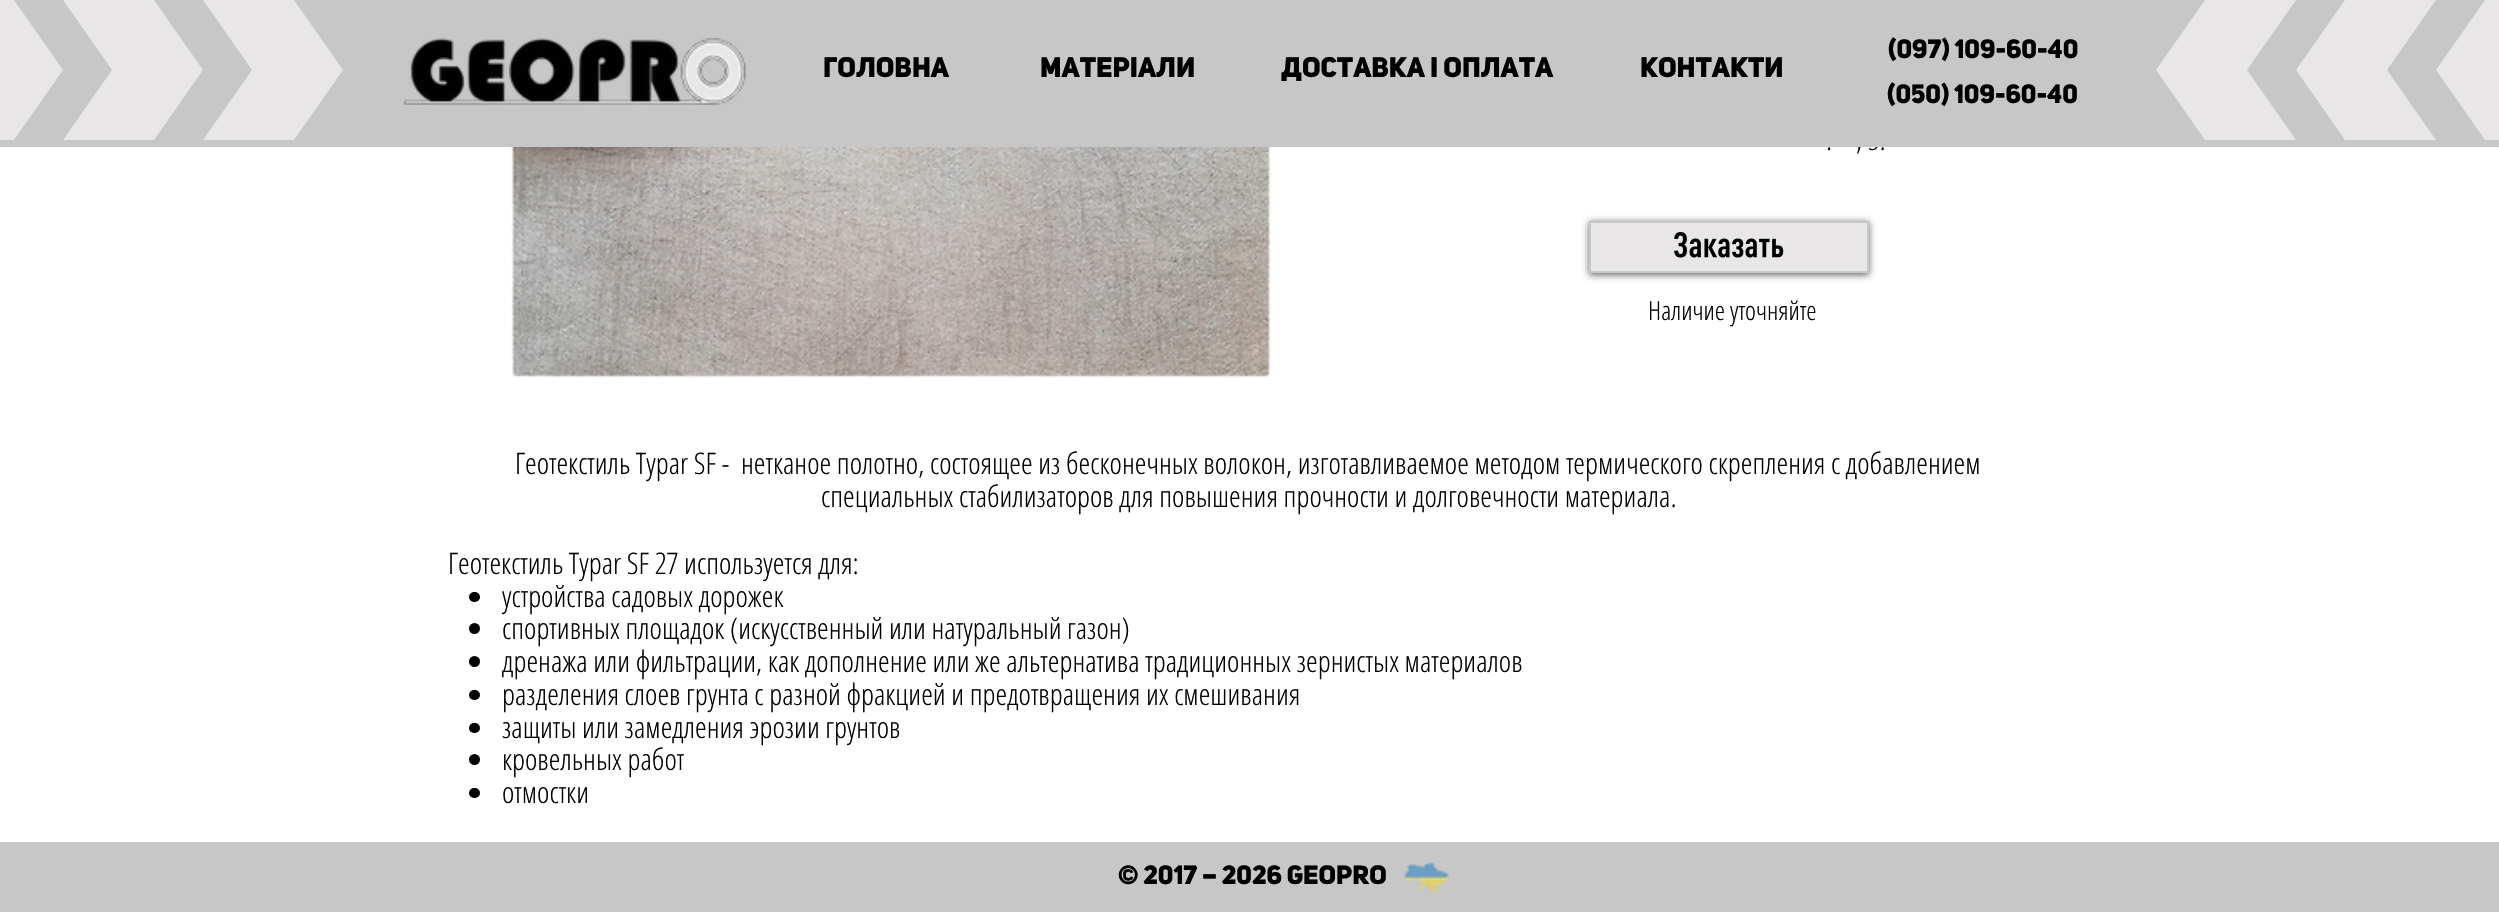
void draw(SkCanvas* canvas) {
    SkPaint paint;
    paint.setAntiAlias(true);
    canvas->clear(0xFFFFFFFF);
    SkFont font1(fontMgr->matchFamilyStyle("Open Sans Condensed", SkFontStyle(300, SkFontStyle::kNormal_Width, SkFontStyle::kUpright_Slant)), 29.75f);
    font1.setSubpixel(true);
    paint.setColor(0xFF000000);
    canvas->drawString(", 5.", 1856, 150, font1, paint);
    paint.setColor(0xFFC7C7C7);
    canvas->drawRect(SkRect::MakeXYWH(0, 0, 2499, 147), paint);
    paint.setColor(0xFFE8E6E6);
    canvas->drawPath(SkPathBuilder().moveTo(63, 70).lineTo(14, 140).lineTo(-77, 140).lineTo(-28, 70).lineTo(-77, 0).lineTo(14, 0).close().detach(), paint);
    canvas->drawPath(SkPathBuilder().moveTo(203, 70).lineTo(154, 140).lineTo(63, 140).lineTo(112, 70).lineTo(63, 0).lineTo(154, 0).close().detach(), paint);
    canvas->drawPath(SkPathBuilder().moveTo(343, 70).lineTo(294, 140).lineTo(203, 140).lineTo(252, 70).lineTo(203, 0).lineTo(294, 0).close().detach(), paint);
    canvas->drawPath(SkPathBuilder().moveTo(2156, 70).lineTo(2205, 140).lineTo(2296, 140).lineTo(2247, 70).lineTo(2296, 0).lineTo(2205, 0).close().detach(), paint);
    canvas->drawPath(SkPathBuilder().moveTo(2296, 70).lineTo(2345, 140).lineTo(2436, 140).lineTo(2387, 70).lineTo(2436, 0).lineTo(2345, 0).close().detach(), paint);
    canvas->drawPath(SkPathBuilder().moveTo(2436, 70).lineTo(2485, 140).lineTo(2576, 140).lineTo(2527, 70).lineTo(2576, 0).lineTo(2485, 0).close().detach(), paint);
    canvas->drawImageRect(SkImages::DeferredFromEncodedData(SkData::MakeFromFileName("img1.png")), SkRect::MakeXYWH(403, 38, 343, 67), SkSamplingOptions());
    SkFont font2(fontMgr->matchFamilyStyle("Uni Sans", SkFontStyle(900, SkFontStyle::kNormal_Width, SkFontStyle::kUpright_Slant)), 28);
    font2.setSubpixel(true);
    paint.setColor(0xFF000000);
    canvas->drawString("ГОЛОВНА", 823, 77, font2, paint);
    canvas->drawString("МАТЕРIАЛИ", 1040, 77, font2, paint);
    canvas->drawString("ДОСТАВКА I ОПЛАТА", 1281, 77, font2, paint);
    canvas->drawString("КОНТАКТИ", 1640, 77, font2, paint);
    SkFont font3(fontMgr->matchFamilyStyle("Uni Sans", SkFontStyle(900, SkFontStyle::kNormal_Width, SkFontStyle::kUpright_Slant)), 26.25f);
    font3.setSubpixel(true);
    canvas->drawString("(097) 109-60-40", 1888, 58, font3, paint);
    canvas->drawString("(050) 109-60-40", 1887, 103, font3, paint);
    canvas->drawImageRect(SkImages::DeferredFromEncodedData(SkData::MakeFromFileName("img2.png")), SkRect::MakeXYWH(511, 147, 760, 231), SkSamplingOptions());
    canvas->drawString(".", 1826, 150, font1, paint);
    paint.setColor(0x99000000);
    paint.setMaskFilter(SkMaskFilter::MakeBlur(kNormal_SkBlurStyle, 3.5f));
    canvas->drawRect(SkRect::MakeXYWH(1589, 222, 280, 53), paint);
    paint.setMaskFilter(nullptr);
    paint.setColor(0xFFE8E6E6);
    canvas->drawRect(SkRect::MakeXYWH(1590, 222, 278, 50), paint);
    paint.setStyle(SkPaint::kStroke_Style);
    paint.setStrokeWidth(2);
    paint.setColor(0xFFC7C7C7);
    canvas->drawRect(SkRect::MakeXYWH(1590, 222, 278, 50), paint);
    canvas->drawImageRect(SkImages::DeferredFromEncodedData(SkData::MakeFromFileName("img3.png")), SkRect::MakeXYWH(1674, 232, 110, 26), SkSamplingOptions());
    SkFont font4(fontMgr->matchFamilyStyle("Open Sans Condensed", SkFontStyle(300, SkFontStyle::kNormal_Width, SkFontStyle::kUpright_Slant)), 26.25f);
    font4.setSubpixel(true);
    paint.setStyle(SkPaint::kFill_Style);
    paint.setColor(0xFF000000);
    canvas->drawString("Наличие уточняйте", 1648, 320, font4, paint);
    canvas->drawString("Геотекстиль Typar SF -", 515, 474, font1, paint);
    canvas->drawString("нетканое полотно, состоящее из бесконечных волокон, изготавливаемое методом термического скрепления с добавлением", 741, 474, font1, paint);
    canvas->drawString("специальных стабилизаторов для повышения прочности и долговечности материала.", 821, 507, font1, paint);
    canvas->drawString("Геотекстиль Typar SF 27 используется для:", 448, 574, font1, paint);
    canvas->drawRoundRect(SkRect::MakeXYWH(469, 592, 11, 10), 5, 5, paint);
    canvas->drawString("устройства садовых дорожек", 502, 607, font1, paint);
    canvas->drawCircle(474.5f, 628.5f, 5.5f, paint);
    canvas->drawString("спортивных площадок (искусственный или натуральный газон)", 502, 639, font1, paint);
    canvas->drawCircle(474.5f, 661.5f, 5.5f, paint);
    canvas->drawString("дренажа или фильтрации, как дополнение или же альтернатива традиционных зернистых материалов", 502, 672, font1, paint);
    canvas->drawRoundRect(SkRect::MakeXYWH(469, 690, 11, 10), 5, 5, paint);
    canvas->drawString("разделения слоев грунта с разной фракцией и предотвращения их смешивания", 502, 705, font1, paint);
    canvas->drawRoundRect(SkRect::MakeXYWH(469, 723, 11, 10), 5, 5, paint);
    canvas->drawString("защиты или замедления эрозии грунтов", 502, 738, font1, paint);
    canvas->drawCircle(474.5f, 759.5f, 5.5f, paint);
    canvas->drawString("кровельных работ", 502, 770, font1, paint);
    canvas->drawRoundRect(SkRect::MakeXYWH(469, 788, 11, 10), 5, 5, paint);
    canvas->drawString("отмостки", 502, 803, font1, paint);
    paint.setColor(0xFFC7C7C7);
    canvas->drawRect(SkRect::MakeXYWH(0, 842, 2499, 70), paint);
    paint.setColor(0xFF000000);
    canvas->drawString("© 2017 – 2026 GEOPRO", 1118, 884, font3, paint);
    canvas->drawImageRect(SkImages::DeferredFromEncodedData(SkData::MakeFromFileName("img4.png")), SkRect::MakeXYWH(1403, 862, 47, 32), SkSamplingOptions());
}
